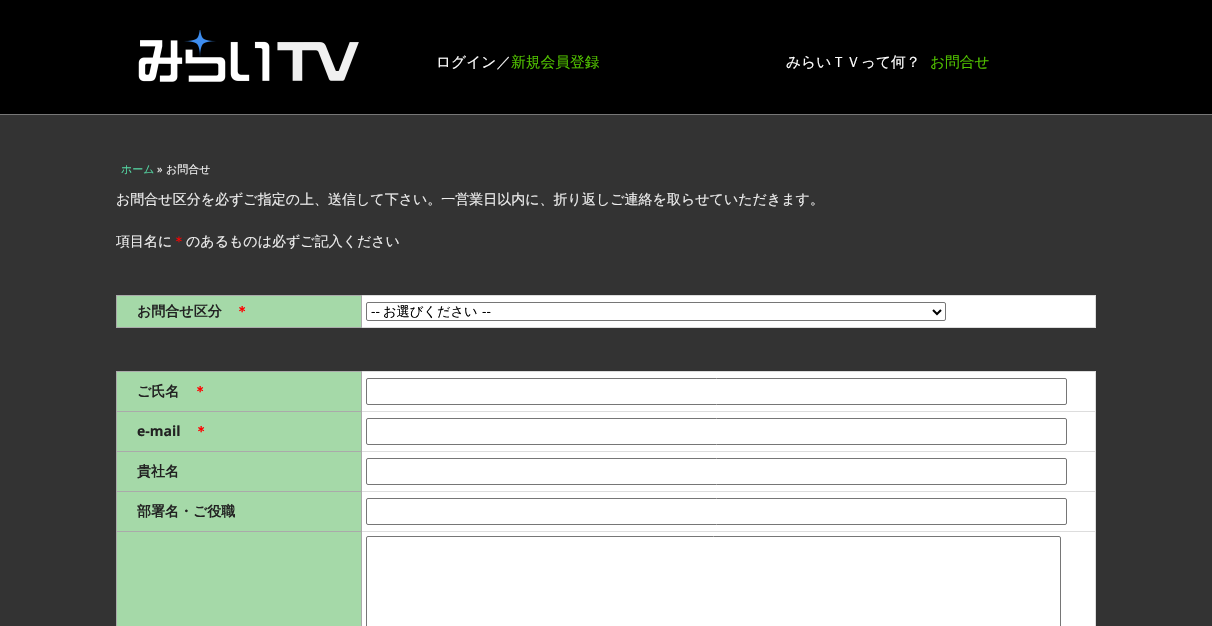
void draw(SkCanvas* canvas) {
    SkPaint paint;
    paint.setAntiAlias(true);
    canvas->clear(0xFF333333);
    paint.setColor(0xFF000000);
    canvas->drawRect(SkRect::MakeXYWH(0, 0, 1212, 114), paint);
    paint.setColor(0xFF777777);
    canvas->drawRect(SkRect::MakeXYWH(0, 114, 1212, 1), paint);
    canvas->drawImageRect(SkImages::DeferredFromEncodedData(SkData::MakeFromFileName("img1.png")), SkRect::MakeXYWH(138, 30, 221, 52), SkSamplingOptions());
    SkFont font1(fontMgr->matchFamilyStyle("WenQuanYi Zen Hei", SkFontStyle(500, SkFontStyle::kNormal_Width, SkFontStyle::kUpright_Slant)), 14.75f);
    font1.setSubpixel(true);
    paint.setColor(0xFFFFFFFF);
    canvas->drawString("ログイン／", 436, 67, font1, paint);
    paint.setColor(0xFF51C300);
    canvas->drawString("新規会員登録", 511, 67, font1, paint);
    paint.setColor(0xFFFFFFFF);
    canvas->drawString("みらいＴＶって何？", 786, 67, font1, paint);
    paint.setColor(0xFF51C300);
    canvas->drawString("お問合せ", 930, 67, font1, paint);
    SkFont font2(fontMgr->matchFamilyStyle("WenQuanYi Zen Hei", SkFontStyle(500, SkFontStyle::kNormal_Width, SkFontStyle::kUpright_Slant)), 11);
    font2.setSubpixel(true);
    paint.setColor(0xFF54D5A2);
    canvas->drawString("ホーム", 121, 173, font2, paint);
    SkFont font3(fontMgr->matchFamilyStyle("Open Sans", SkFontStyle::Normal()), 11);
    font3.setSubpixel(true);
    paint.setColor(0xFFEEEEEE);
    canvas->drawString("»", 157, 173, font3, paint);
    canvas->drawString("お問合せ", 166, 173, font2, paint);
    SkFont font4(fontMgr->matchFamilyStyle("WenQuanYi Zen Hei", SkFontStyle(500, SkFontStyle::kNormal_Width, SkFontStyle::kUpright_Slant)), 14);
    font4.setSubpixel(true);
    canvas->drawString("お問合せ区分を必ずご指定の上、送信して下さい。一営業日以内に、折り返しご連絡を取らせていただきます。", 116, 204, font4, paint);
    canvas->drawString("項目名に", 116, 246, font4, paint);
    paint.setColor(0xFFFF0000);
    canvas->drawString("＊", 172, 246, font4, paint);
    paint.setColor(0xFFEEEEEE);
    canvas->drawString("のあるものは必ずご記入ください", 186, 246, font4, paint);
    paint.setColor(0xFFFFFFFF);
    canvas->drawRect(SkRect::MakeXYWH(362, 296, 733, 31), paint);
    paint.setColor(0xFFDDDDDD);
    canvas->drawRect(SkRect::MakeXYWH(362, 295, 734, 1), paint);
    canvas->drawRect(SkRect::MakeXYWH(362, 327, 734, 1), paint);
    paint.setColor(0xFFA5D9A8);
    canvas->drawRect(SkRect::MakeXYWH(117, 296, 244, 31), paint);
    paint.setColor(0xFFAAAAAA);
    canvas->drawRect(SkRect::MakeXYWH(116, 295, 246, 1), paint);
    canvas->drawRect(SkRect::MakeXYWH(361, 295, 1, 33), paint);
    canvas->drawRect(SkRect::MakeXYWH(116, 327, 246, 1), paint);
    canvas->drawRect(SkRect::MakeXYWH(116, 295, 1, 33), paint);
    SkFont font5(fontMgr->matchFamilyStyle("WenQuanYi Zen Hei", SkFontStyle::Bold()), 14);
    font5.setSubpixel(true);
    paint.setColor(0xFF222222);
    canvas->drawString("お問合せ区分", 137, 316, font5, paint);
    paint.setColor(0xFFFF0000);
    canvas->drawString("＊", 235, 316, font5, paint);
    paint.setColor(0xFFDDDDDD);
    canvas->drawRect(SkRect::MakeXYWH(1095, 295, 1, 33), paint);
    paint.setStyle(SkPaint::kStroke_Style);
    paint.setStrokeWidth(1);
    paint.setColor(0xFF767676);
    canvas->drawRoundRect(SkRect::MakeXYWH(366.5f, 302.5f, 579, 18), 1.5f, 1.5f, paint);
    paint.setStrokeWidth(2);
    paint.setColor(0xFF000000);
    canvas->drawPath(SkPathBuilder().moveTo(933, 310).lineTo(937, 314).lineTo(941, 310).detach(), paint);
    SkFont font6(fontMgr->matchFamilyStyle("Liberation Sans", SkFontStyle::Normal()), 13.25f);
    font6.setSubpixel(true);
    paint.setStyle(SkPaint::kFill_Style);
    canvas->drawString("--", 371, 316, font6, paint);
    SkFont font7(fontMgr->matchFamilyStyle("WenQuanYi Zen Hei", SkFontStyle(500, SkFontStyle::kNormal_Width, SkFontStyle::kUpright_Slant)), 13.25f);
    font7.setSubpixel(true);
    canvas->drawString("お選びください", 383, 316, font7, paint);
    canvas->drawString("--", 482, 316, font6, paint);
    paint.setColor(0xFFFFFFFF);
    canvas->drawRect(SkRect::MakeXYWH(362, 372, 733, 254), paint);
    paint.setColor(0xFFDDDDDD);
    canvas->drawRect(SkRect::MakeXYWH(362, 371, 734, 1), paint);
    paint.setColor(0xFFA5D9A8);
    canvas->drawRect(SkRect::MakeXYWH(117, 372, 244, 39), paint);
    paint.setColor(0xFFAAAAAA);
    canvas->drawRect(SkRect::MakeXYWH(116, 371, 246, 1), paint);
    paint.setColor(0xFFDDDDDD);
    canvas->drawRect(SkRect::MakeXYWH(361, 411, 735, 1), paint);
    paint.setColor(0xFFAAAAAA);
    canvas->drawRect(SkRect::MakeXYWH(116, 411, 246, 1), paint);
    paint.setColor(0xFFDDDDDD);
    canvas->drawRect(SkRect::MakeXYWH(361, 451, 735, 1), paint);
    paint.setColor(0xFFAAAAAA);
    canvas->drawRect(SkRect::MakeXYWH(116, 451, 246, 1), paint);
    paint.setColor(0xFFDDDDDD);
    canvas->drawRect(SkRect::MakeXYWH(361, 491, 735, 1), paint);
    paint.setColor(0xFFAAAAAA);
    canvas->drawRect(SkRect::MakeXYWH(116, 491, 246, 1), paint);
    paint.setColor(0xFFDDDDDD);
    canvas->drawRect(SkRect::MakeXYWH(361, 531, 735, 1), paint);
    paint.setColor(0xFFAAAAAA);
    canvas->drawRect(SkRect::MakeXYWH(116, 531, 246, 1), paint);
    canvas->drawRect(SkRect::MakeXYWH(361, 531, 1, 95), paint);
    canvas->drawRect(SkRect::MakeXYWH(361, 491, 1, 41), paint);
    canvas->drawRect(SkRect::MakeXYWH(361, 451, 1, 41), paint);
    canvas->drawRect(SkRect::MakeXYWH(361, 411, 1, 41), paint);
    canvas->drawRect(SkRect::MakeXYWH(361, 371, 1, 41), paint);
    canvas->drawRect(SkRect::MakeXYWH(116, 531, 1, 95), paint);
    canvas->drawRect(SkRect::MakeXYWH(116, 491, 1, 41), paint);
    canvas->drawRect(SkRect::MakeXYWH(116, 451, 1, 41), paint);
    canvas->drawRect(SkRect::MakeXYWH(116, 411, 1, 41), paint);
    canvas->drawRect(SkRect::MakeXYWH(116, 371, 1, 41), paint);
    paint.setColor(0xFF222222);
    canvas->drawString("ご氏名", 137, 396, font5, paint);
    paint.setColor(0xFFFF0000);
    canvas->drawString("＊", 193, 396, font5, paint);
    paint.setStyle(SkPaint::kStroke_Style);
    paint.setStrokeWidth(1);
    paint.setColor(0xFF767676);
    canvas->drawRoundRect(SkRect::MakeXYWH(366.5f, 378.5f, 700, 26), 1.5f, 1.5f, paint);
    paint.setStyle(SkPaint::kFill_Style);
    paint.setColor(0xFFA5D9A8);
    canvas->drawRect(SkRect::MakeXYWH(117, 412, 244, 39), paint);
    SkFont font8(fontMgr->matchFamilyStyle("Open Sans", SkFontStyle::Bold()), 14);
    font8.setSubpixel(true);
    paint.setColor(0xFF222222);
    canvas->drawString("e-mail", 137, 436, font8, paint);
    paint.setColor(0xFFFF0000);
    canvas->drawString("＊", 194, 436, font5, paint);
    paint.setColor(0xFFDDDDDD);
    canvas->drawRect(SkRect::MakeXYWH(1095, 531, 1, 95), paint);
    canvas->drawRect(SkRect::MakeXYWH(1095, 491, 1, 41), paint);
    canvas->drawRect(SkRect::MakeXYWH(1095, 451, 1, 41), paint);
    canvas->drawRect(SkRect::MakeXYWH(1095, 371, 1, 81), paint);
    paint.setStyle(SkPaint::kStroke_Style);
    paint.setColor(0xFF767676);
    canvas->drawRoundRect(SkRect::MakeXYWH(366.5f, 418.5f, 700, 26), 1.5f, 1.5f, paint);
    paint.setStyle(SkPaint::kFill_Style);
    paint.setColor(0xFFA5D9A8);
    canvas->drawRect(SkRect::MakeXYWH(117, 452, 244, 39), paint);
    paint.setColor(0xFF222222);
    canvas->drawString("貴社名", 137, 476, font5, paint);
    paint.setStyle(SkPaint::kStroke_Style);
    paint.setColor(0xFF767676);
    canvas->drawRoundRect(SkRect::MakeXYWH(366.5f, 458.5f, 700, 26), 1.5f, 1.5f, paint);
    paint.setStyle(SkPaint::kFill_Style);
    paint.setColor(0xFFA5D9A8);
    canvas->drawRect(SkRect::MakeXYWH(117, 492, 244, 39), paint);
    paint.setColor(0xFF222222);
    canvas->drawString("部署名・ご役職", 137, 516, font5, paint);
    paint.setStyle(SkPaint::kStroke_Style);
    paint.setColor(0xFF767676);
    canvas->drawRoundRect(SkRect::MakeXYWH(366.5f, 498.5f, 700, 26), 1.5f, 1.5f, paint);
    paint.setStyle(SkPaint::kFill_Style);
    paint.setColor(0xFFA5D9A8);
    canvas->drawRect(SkRect::MakeXYWH(117, 532, 244, 94), paint);
    paint.setStyle(SkPaint::kStroke_Style);
    paint.setColor(0xFF767676);
    canvas->drawRoundRect(SkRect::MakeXYWH(366.5f, 536.5f, 694, 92), 1.5f, 1.5f, paint);
}
